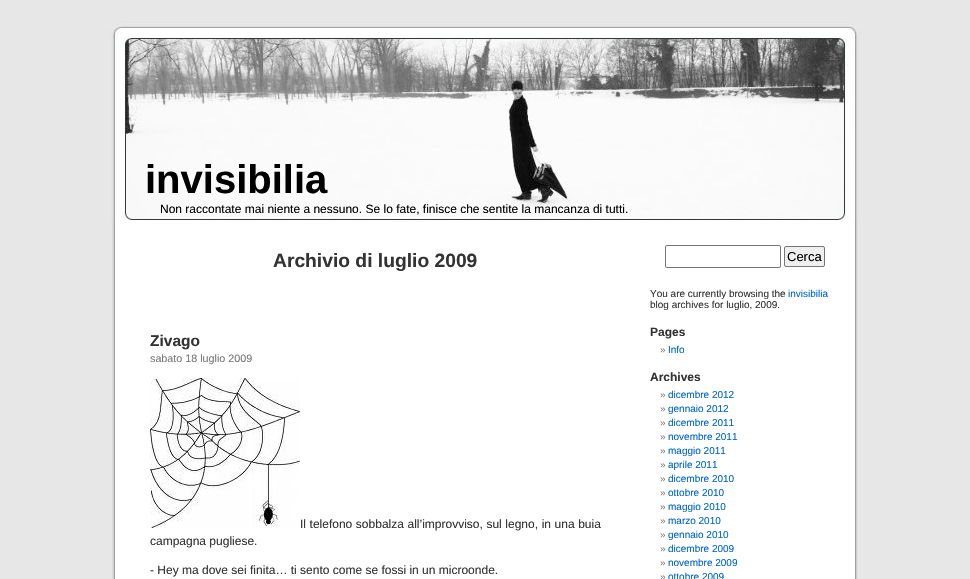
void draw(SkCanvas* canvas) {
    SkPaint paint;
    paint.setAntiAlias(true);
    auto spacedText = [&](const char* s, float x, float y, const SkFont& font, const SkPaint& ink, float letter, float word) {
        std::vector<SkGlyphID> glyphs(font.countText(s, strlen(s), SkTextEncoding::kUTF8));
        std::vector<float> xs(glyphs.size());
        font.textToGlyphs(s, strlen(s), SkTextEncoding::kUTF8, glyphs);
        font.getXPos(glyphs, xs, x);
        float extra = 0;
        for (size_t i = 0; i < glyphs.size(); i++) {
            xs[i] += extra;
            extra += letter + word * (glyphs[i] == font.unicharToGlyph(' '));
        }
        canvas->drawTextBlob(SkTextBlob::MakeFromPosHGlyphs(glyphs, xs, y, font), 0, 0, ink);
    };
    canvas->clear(0xFFE7E7E7);
    canvas->drawImageRect(SkImages::DeferredFromEncodedData(SkData::MakeFromFileName("img1.png")), SkRect::MakeXYWH(112, 220, 746, 359), SkSamplingOptions());
    canvas->drawImageRect(SkImages::DeferredFromEncodedData(SkData::MakeFromFileName("img2.png")), SkRect::MakeXYWH(106, 20, 758, 200), SkSamplingOptions());
    SkFont font1(fontMgr->matchFamilyStyle("Liberation Sans", SkFontStyle::Bold()), 40);
    font1.setSubpixel(true);
    paint.setColor(0xFF000000);
    canvas->drawString("invisibilia", 145, 193, font1, paint);
    SkFont font2(fontMgr->matchFamilyStyle("Liberation Sans", SkFontStyle::Normal()), 12);
    font2.setSubpixel(true);
    canvas->drawString("Non raccontate mai niente a nessuno. Se lo fate, finisce che sentite la mancanza di tutti.", 160, 213, font2, paint);
    SkFont font3(fontMgr->matchFamilyStyle("Liberation Sans", SkFontStyle::Bold()), 19.25f);
    font3.setSubpixel(true);
    paint.setColor(0xFF333333);
    canvas->drawString("Archivio di luglio 2009", 273, 267, font3, paint);
    SkFont font4(fontMgr->matchFamilyStyle("Liberation Sans", SkFontStyle::Bold()), 15.5f);
    font4.setSubpixel(true);
    canvas->drawString("Zivago", 150, 346, font4, paint);
    SkFont font5(fontMgr->matchFamilyStyle("Liberation Sans", SkFontStyle::Normal()), 10.75f);
    font5.setSubpixel(true);
    paint.setColor(0xFF777777);
    canvas->drawString("sabato 18 luglio 2009", 150, 362, font5, paint);
    canvas->drawImageRect(SkImages::DeferredFromEncodedData(SkData::MakeFromFileName("img3.png")), SkRect::MakeXYWH(150, 378, 150, 150), SkSamplingOptions());
    paint.setColor(0xFF333333);
    spacedText("Il telefono sobbalza all’improvviso, sul legno, in una buia", 300, 528, font2, paint, 0, 0.25f);
    canvas->drawString("campagna pugliese.", 150, 545, font2, paint);
    canvas->drawString("- Hey ma dove sei finita… ti sento come se fossi in un microonde.", 150, 574, font2, paint);
    paint.setStyle(SkPaint::kStroke_Style);
    paint.setStrokeWidth(1);
    paint.setColor(0xFF767676);
    canvas->drawRoundRect(SkRect::MakeXYWH(665.5f, 245.5f, 115, 22), 1.5f, 1.5f, paint);
    paint.setStyle(SkPaint::kFill_Style);
    paint.setColor(0xFFEFEFEF);
    canvas->drawRoundRect(SkRect::MakeXYWH(784.5f, 246.5f, 40, 20), 1.5f, 1.5f, paint);
    paint.setStyle(SkPaint::kStroke_Style);
    paint.setColor(0xFF767676);
    canvas->drawRoundRect(SkRect::MakeXYWH(784.5f, 246.5f, 40, 20), 1.5f, 1.5f, paint);
    SkFont font6(fontMgr->matchFamilyStyle("Liberation Sans", SkFontStyle::Normal()), 13);
    font6.setSubpixel(true);
    paint.setStyle(SkPaint::kFill_Style);
    paint.setColor(0xFF000000);
    canvas->drawString("Cerca", 787, 261, font6, paint);
    SkFont font7(fontMgr->matchFamilyStyle("Liberation Sans", SkFontStyle::Normal()), 10);
    font7.setSubpixel(true);
    paint.setColor(0xFF333333);
    canvas->drawString("You are currently browsing the", 650, 297, font7, paint);
    paint.setColor(0xFF0066CC);
    canvas->drawString("invisibilia", 788, 297, font7, paint);
    paint.setColor(0xFF333333);
    canvas->drawString("blog archives for luglio, 2009.", 650, 308, font7, paint);
    SkFont font8(fontMgr->matchFamilyStyle("Liberation Sans", SkFontStyle::Bold()), 12);
    font8.setSubpixel(true);
    canvas->drawString("Pages", 650, 336, font8, paint);
    paint.setColor(0xFF777777);
    canvas->drawString("»", 660, 353, font7, paint);
    paint.setColor(0xFF0066CC);
    canvas->drawString("Info", 668, 353, font7, paint);
    paint.setColor(0xFF333333);
    canvas->drawString("Archives", 650, 381, font8, paint);
    paint.setColor(0xFF777777);
    canvas->drawString("»", 660, 398, font7, paint);
    paint.setColor(0xFF0066CC);
    canvas->drawString("dicembre 2012", 668, 398, font7, paint);
    paint.setColor(0xFF777777);
    canvas->drawString("»", 660, 412, font7, paint);
    paint.setColor(0xFF0066CC);
    canvas->drawString("gennaio 2012", 668, 412, font7, paint);
    paint.setColor(0xFF777777);
    canvas->drawString("»", 660, 426, font7, paint);
    paint.setColor(0xFF0066CC);
    canvas->drawString("dicembre 2011", 668, 426, font7, paint);
    paint.setColor(0xFF777777);
    canvas->drawString("»", 660, 440, font7, paint);
    paint.setColor(0xFF0066CC);
    canvas->drawString("novembre 2011", 668, 440, font7, paint);
    paint.setColor(0xFF777777);
    canvas->drawString("»", 660, 454, font7, paint);
    paint.setColor(0xFF0066CC);
    canvas->drawString("maggio 2011", 668, 454, font7, paint);
    paint.setColor(0xFF777777);
    canvas->drawString("»", 660, 468, font7, paint);
    paint.setColor(0xFF0066CC);
    canvas->drawString("aprile 2011", 668, 468, font7, paint);
    paint.setColor(0xFF777777);
    canvas->drawString("»", 660, 482, font7, paint);
    paint.setColor(0xFF0066CC);
    canvas->drawString("dicembre 2010", 668, 482, font7, paint);
    paint.setColor(0xFF777777);
    canvas->drawString("»", 660, 496, font7, paint);
    paint.setColor(0xFF0066CC);
    canvas->drawString("ottobre 2010", 668, 496, font7, paint);
    paint.setColor(0xFF777777);
    canvas->drawString("»", 660, 510, font7, paint);
    paint.setColor(0xFF0066CC);
    canvas->drawString("maggio 2010", 668, 510, font7, paint);
    paint.setColor(0xFF777777);
    canvas->drawString("»", 660, 524, font7, paint);
    paint.setColor(0xFF0066CC);
    canvas->drawString("marzo 2010", 668, 524, font7, paint);
    paint.setColor(0xFF777777);
    canvas->drawString("»", 660, 538, font7, paint);
    paint.setColor(0xFF0066CC);
    canvas->drawString("gennaio 2010", 668, 538, font7, paint);
    paint.setColor(0xFF777777);
    canvas->drawString("»", 660, 552, font7, paint);
    paint.setColor(0xFF0066CC);
    canvas->drawString("dicembre 2009", 668, 552, font7, paint);
    paint.setColor(0xFF777777);
    canvas->drawString("»", 660, 566, font7, paint);
    paint.setColor(0xFF0066CC);
    canvas->drawString("novembre 2009", 668, 566, font7, paint);
    paint.setColor(0xFF777777);
    canvas->drawString("»", 660, 580, font7, paint);
    paint.setColor(0xFF0066CC);
    canvas->drawString("ottobre 2009", 668, 580, font7, paint);
}
